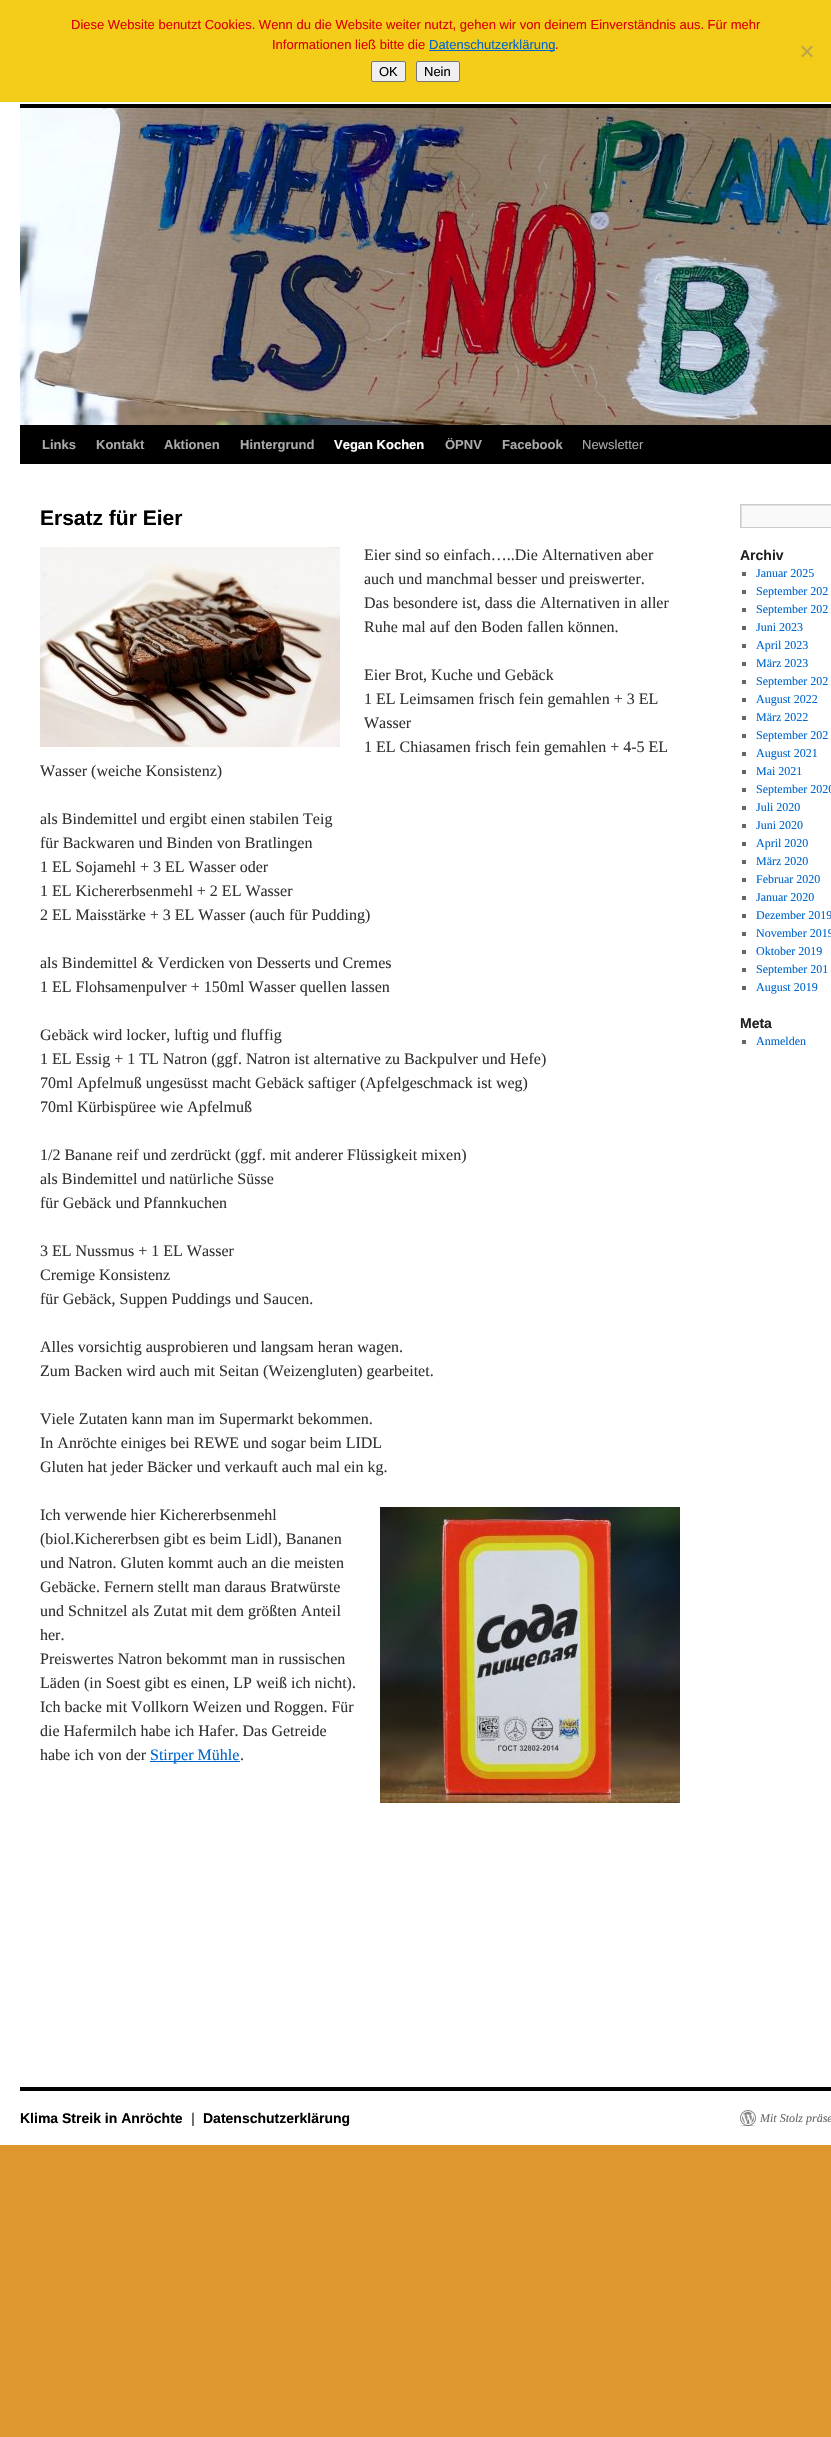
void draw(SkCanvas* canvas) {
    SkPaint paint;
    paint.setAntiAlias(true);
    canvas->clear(0xFFDD972E);
    paint.setColor(0xFFF4CC1A);
    canvas->drawRect(SkRect::MakeXYWH(0, 0, 831, 102), paint);
    SkFont font1(fontMgr->matchFamilyStyle("Liberation Sans", SkFontStyle::Normal()), 13);
    font1.setSubpixel(true);
    paint.setColor(0xFFDD0000);
    canvas->drawString("Diese Website benutzt Cookies. Wenn du die Website weiter nutzt, gehen wir von deinem Einverständnis aus. Für mehr", 71, 29, font1, paint);
    canvas->drawString("Informationen ließ bitte die", 272, 49, font1, paint);
    paint.setColor(0xFF0066CC);
    canvas->drawRect(SkRect::MakeXYWH(429, 50, 126, 1), paint);
    canvas->drawString("Datenschutzerklärung", 429, 49, font1, paint);
    paint.setColor(0xFFDD0000);
    canvas->drawString(".", 555, 49, font1, paint);
    paint.setColor(0xFFBAA64D);
    canvas->drawPath(SkPathBuilder().moveTo(811.5f, 45.5f).lineTo(813, 47).lineTo(802.5f, 57.5f).lineTo(801, 56).close().detach(), paint);
    canvas->drawPath(SkPathBuilder().moveTo(801, 47).lineTo(802.5f, 45.5f).lineTo(813, 56).lineTo(811.5f, 57.5f).close().detach(), paint);
    paint.setColor(0xFFEFEFEF);
    canvas->drawRoundRect(SkRect::MakeXYWH(371.5f, 61.5f, 34, 20), 1.5f, 1.5f, paint);
    paint.setStyle(SkPaint::kStroke_Style);
    paint.setStrokeWidth(1);
    paint.setColor(0xFF767676);
    canvas->drawRoundRect(SkRect::MakeXYWH(371.5f, 61.5f, 34, 20), 1.5f, 1.5f, paint);
    paint.setStyle(SkPaint::kFill_Style);
    paint.setColor(0xFF000000);
    canvas->drawString("OK", 379, 76, font1, paint);
    paint.setColor(0xFFEFEFEF);
    canvas->drawRoundRect(SkRect::MakeXYWH(416.5f, 61.5f, 43, 20), 1.5f, 1.5f, paint);
    paint.setStyle(SkPaint::kStroke_Style);
    paint.setColor(0xFF767676);
    canvas->drawRoundRect(SkRect::MakeXYWH(416.5f, 61.5f, 43, 20), 1.5f, 1.5f, paint);
    paint.setStyle(SkPaint::kFill_Style);
    paint.setColor(0xFF000000);
    canvas->drawString("Nein", 424, 76, font1, paint);
    paint.setColor(0xFFFFFFFF);
    canvas->drawRect(SkRect::MakeXYWH(0, 102, 831, 2043), paint);
    paint.setColor(0xFF000000);
    canvas->drawRect(SkRect::MakeXYWH(20, 104, 811, 4), paint);
    canvas->drawRect(SkRect::MakeXYWH(20, 425, 811, 39), paint);
    canvas->drawImageRect(SkImages::DeferredFromEncodedData(SkData::MakeFromFileName("img1.png")), SkRect::MakeXYWH(20, 108, 811, 317), SkSamplingOptions());
    SkFont font2(fontMgr->matchFamilyStyle("Liberation Sans", SkFontStyle::Bold()), 13);
    font2.setSubpixel(true);
    paint.setColor(0xFFAAAAAA);
    canvas->drawString("Links", 42, 449, font2, paint);
    canvas->drawString("Kontakt", 96, 449, font2, paint);
    canvas->drawString("Aktionen", 164, 449, font2, paint);
    canvas->drawString("Hintergrund", 240, 449, font2, paint);
    paint.setColor(0xFFFFFFFF);
    canvas->drawString("Vegan Kochen", 334, 449, font2, paint);
    paint.setColor(0xFFAAAAAA);
    canvas->drawString("ÖPNV", 445, 449, font2, paint);
    canvas->drawString("Facebook", 502, 449, font2, paint);
    canvas->drawString("Newsletter", 582, 449, font1, paint);
    SkFont font3(fontMgr->matchFamilyStyle("Liberation Sans", SkFontStyle::Bold()), 21);
    font3.setSubpixel(true);
    paint.setColor(0xFF000000);
    canvas->drawString("Ersatz für Eier", 40, 525, font3, paint);
    canvas->drawImageRect(SkImages::DeferredFromEncodedData(SkData::MakeFromFileName("img2.png")), SkRect::MakeXYWH(40, 547, 300, 200), SkSamplingOptions());
    SkFont font4(fontMgr->matchFamilyStyle("Liberation Serif", SkFontStyle::Normal()), 16);
    font4.setSubpixel(true);
    paint.setColor(0xFF333333);
    canvas->drawString("Eier sind so einfach…..Die Alternativen aber", 364, 560, font4, paint);
    canvas->drawString("auch und manchmal besser und preiswerter.", 364, 584, font4, paint);
    canvas->drawString("Das besondere ist, dass die Alternativen in aller", 364, 608, font4, paint);
    canvas->drawString("Ruhe mal auf den Boden fallen können.", 364, 632, font4, paint);
    canvas->drawString("Eier Brot, Kuche und Gebäck", 364, 680, font4, paint);
    canvas->drawString("1 EL Leimsamen frisch fein gemahlen + 3 EL", 364, 704, font4, paint);
    canvas->drawString("Wasser", 364, 728, font4, paint);
    canvas->drawString("1 EL Chiasamen frisch fein gemahlen + 4-5 EL", 364, 752, font4, paint);
    canvas->drawString("Wasser (weiche Konsistenz)", 40, 776, font4, paint);
    canvas->drawString("als Bindemittel und ergibt einen stabilen Teig", 40, 824, font4, paint);
    canvas->drawString("für Backwaren und Binden von Bratlingen", 40, 848, font4, paint);
    canvas->drawString("1 EL Sojamehl + 3 EL Wasser oder", 40, 872, font4, paint);
    canvas->drawString("1 EL Kichererbsenmehl + 2 EL Wasser", 40, 896, font4, paint);
    canvas->drawString("2 EL Maisstärke + 3 EL Wasser (auch für Pudding)", 40, 920, font4, paint);
    canvas->drawString("als Bindemittel & Verdicken von Desserts und Cremes", 40, 968, font4, paint);
    canvas->drawString("1 EL Flohsamenpulver + 150ml Wasser quellen lassen", 40, 992, font4, paint);
    canvas->drawString("Gebäck wird locker, luftig und fluffig", 40, 1040, font4, paint);
    canvas->drawString("1 EL Essig + 1 TL Natron (ggf. Natron ist alternative zu Backpulver und Hefe)", 40, 1064, font4, paint);
    canvas->drawString("70ml Apfelmuß ungesüsst macht Gebäck saftiger (Apfelgeschmack ist weg)", 40, 1088, font4, paint);
    canvas->drawString("70ml Kürbispüree wie Apfelmuß", 40, 1112, font4, paint);
    canvas->drawString("1/2 Banane reif und zerdrückt (ggf. mit anderer Flüssigkeit mixen)", 40, 1160, font4, paint);
    canvas->drawString("als Bindemittel und natürliche Süsse", 40, 1184, font4, paint);
    canvas->drawString("für Gebäck und Pfannkuchen", 40, 1208, font4, paint);
    canvas->drawString("3 EL Nussmus + 1 EL Wasser", 40, 1256, font4, paint);
    canvas->drawString("Cremige Konsistenz", 40, 1280, font4, paint);
    canvas->drawString("für Gebäck, Suppen Puddings und Saucen.", 40, 1304, font4, paint);
    canvas->drawString("Alles vorsichtig ausprobieren und langsam heran wagen.", 40, 1352, font4, paint);
    canvas->drawString("Zum Backen wird auch mit Seitan (Weizengluten) gearbeitet.", 40, 1376, font4, paint);
    canvas->drawString("Viele Zutaten kann man im Supermarkt bekommen.", 40, 1424, font4, paint);
    canvas->drawString("In Anröchte einiges bei REWE und sogar beim LIDL", 40, 1448, font4, paint);
    canvas->drawString("Gluten hat jeder Bäcker und verkauft auch mal ein kg.", 40, 1472, font4, paint);
    canvas->drawString("Ich verwende hier Kichererbsenmehl", 40, 1520, font4, paint);
    canvas->drawImageRect(SkImages::DeferredFromEncodedData(SkData::MakeFromFileName("img3.png")), SkRect::MakeXYWH(380, 1507, 300, 296), SkSamplingOptions());
    canvas->drawString("(biol.Kichererbsen gibt es beim Lidl), Bananen", 40, 1544, font4, paint);
    canvas->drawString("und Natron. Gluten kommt auch an die meisten", 40, 1568, font4, paint);
    canvas->drawString("Gebäcke. Fernern stellt man daraus Bratwürste", 40, 1592, font4, paint);
    canvas->drawString("und Schnitzel als Zutat mit dem größten Anteil", 40, 1616, font4, paint);
    canvas->drawString("her.", 40, 1640, font4, paint);
    canvas->drawString("Preiswertes Natron bekommt man in russischen", 40, 1664, font4, paint);
    canvas->drawString("Läden (in Soest gibt es einen, LP weiß ich nicht).", 40, 1688, font4, paint);
    canvas->drawString("Ich backe mit Vollkorn Weizen und Roggen. Für", 40, 1712, font4, paint);
    canvas->drawString("die Hafermilch habe ich Hafer. Das Getreide", 40, 1736, font4, paint);
    canvas->drawString("habe ich von der", 40, 1760, font4, paint);
    paint.setColor(0xFF0066CC);
    canvas->drawRect(SkRect::MakeXYWH(150, 1761, 90, 1), paint);
    canvas->drawString("Stirper Mühle", 150, 1760, font4, paint);
    paint.setColor(0xFF333333);
    canvas->drawString(".", 240, 1760, font4, paint);
    paint.setColor(0xFFF9F9F9);
    canvas->drawRect(SkRect::MakeXYWH(742, 506, 89, 21), paint);
    canvas->save();
    canvas->clipRect(SkRect::MakeXYWH(741, 505, 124, 22));
    paint.setColor(0xFFE0E0E0);
    canvas->drawPath(SkPathBuilder(SkPathFillType::kEvenOdd).moveTo(642, 406).lineTo(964, 406).lineTo(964, 626).lineTo(642, 626).close().moveTo(742, 506).lineTo(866, 506).lineTo(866, 528).lineTo(742, 528).close().detach(), paint);
    canvas->restore();
    paint.setStyle(SkPaint::kStroke_Style);
    paint.setColor(0xFFCCCCCC);
    canvas->drawRect(SkRect::MakeXYWH(740.5f, 504.5f, 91, 23), paint);
    SkFont font5(fontMgr->matchFamilyStyle("Liberation Sans", SkFontStyle::Bold()), 14);
    font5.setSubpixel(true);
    paint.setStyle(SkPaint::kFill_Style);
    paint.setColor(0xFF222222);
    canvas->drawString("Archiv", 740, 560, font5, paint);
    paint.setColor(0xFF666666);
    canvas->drawRect(SkRect::MakeXYWH(742, 572, 4, 4), paint);
    SkFont font6(fontMgr->matchFamilyStyle("Liberation Serif", SkFontStyle::Normal()), 12);
    font6.setSubpixel(true);
    paint.setColor(0xFF0066CC);
    canvas->drawString("Januar 2025", 756, 577, font6, paint);
    paint.setColor(0xFF666666);
    canvas->drawRect(SkRect::MakeXYWH(742, 590, 4, 4), paint);
    paint.setColor(0xFF0066CC);
    canvas->drawString("September 202", 756, 595, font6, paint);
    paint.setColor(0xFF666666);
    canvas->drawRect(SkRect::MakeXYWH(742, 608, 4, 4), paint);
    paint.setColor(0xFF0066CC);
    canvas->drawString("September 202", 756, 613, font6, paint);
    paint.setColor(0xFF666666);
    canvas->drawRect(SkRect::MakeXYWH(742, 626, 4, 4), paint);
    paint.setColor(0xFF0066CC);
    canvas->drawString("Juni 2023", 756, 631, font6, paint);
    paint.setColor(0xFF666666);
    canvas->drawRect(SkRect::MakeXYWH(742, 644, 4, 4), paint);
    paint.setColor(0xFF0066CC);
    canvas->drawString("April 2023", 756, 649, font6, paint);
    paint.setColor(0xFF666666);
    canvas->drawRect(SkRect::MakeXYWH(742, 662, 4, 4), paint);
    paint.setColor(0xFF0066CC);
    canvas->drawString("März 2023", 756, 667, font6, paint);
    paint.setColor(0xFF666666);
    canvas->drawRect(SkRect::MakeXYWH(742, 680, 4, 4), paint);
    paint.setColor(0xFF0066CC);
    canvas->drawString("September 202", 756, 685, font6, paint);
    paint.setColor(0xFF666666);
    canvas->drawRect(SkRect::MakeXYWH(742, 698, 4, 4), paint);
    paint.setColor(0xFF0066CC);
    canvas->drawString("August 2022", 756, 703, font6, paint);
    paint.setColor(0xFF666666);
    canvas->drawRect(SkRect::MakeXYWH(742, 716, 4, 4), paint);
    paint.setColor(0xFF0066CC);
    canvas->drawString("März 2022", 756, 721, font6, paint);
    paint.setColor(0xFF666666);
    canvas->drawRect(SkRect::MakeXYWH(742, 734, 4, 4), paint);
    paint.setColor(0xFF0066CC);
    canvas->drawString("September 202", 756, 739, font6, paint);
    paint.setColor(0xFF666666);
    canvas->drawRect(SkRect::MakeXYWH(742, 752, 4, 4), paint);
    paint.setColor(0xFF0066CC);
    canvas->drawString("August 2021", 756, 757, font6, paint);
    paint.setColor(0xFF666666);
    canvas->drawRect(SkRect::MakeXYWH(742, 770, 4, 4), paint);
    paint.setColor(0xFF0066CC);
    canvas->drawString("Mai 2021", 756, 775, font6, paint);
    paint.setColor(0xFF666666);
    canvas->drawRect(SkRect::MakeXYWH(742, 788, 4, 4), paint);
    paint.setColor(0xFF0066CC);
    canvas->drawString("September 2020", 756, 793, font6, paint);
    paint.setColor(0xFF666666);
    canvas->drawRect(SkRect::MakeXYWH(742, 806, 4, 4), paint);
    paint.setColor(0xFF0066CC);
    canvas->drawString("Juli 2020", 756, 811, font6, paint);
    paint.setColor(0xFF666666);
    canvas->drawRect(SkRect::MakeXYWH(742, 824, 4, 4), paint);
    paint.setColor(0xFF0066CC);
    canvas->drawString("Juni 2020", 756, 829, font6, paint);
    paint.setColor(0xFF666666);
    canvas->drawRect(SkRect::MakeXYWH(742, 842, 4, 4), paint);
    paint.setColor(0xFF0066CC);
    canvas->drawString("April 2020", 756, 847, font6, paint);
    paint.setColor(0xFF666666);
    canvas->drawRect(SkRect::MakeXYWH(742, 860, 4, 4), paint);
    paint.setColor(0xFF0066CC);
    canvas->drawString("März 2020", 756, 865, font6, paint);
    paint.setColor(0xFF666666);
    canvas->drawRect(SkRect::MakeXYWH(742, 878, 4, 4), paint);
    paint.setColor(0xFF0066CC);
    canvas->drawString("Februar 2020", 756, 883, font6, paint);
    paint.setColor(0xFF666666);
    canvas->drawRect(SkRect::MakeXYWH(742, 896, 4, 4), paint);
    paint.setColor(0xFF0066CC);
    canvas->drawString("Januar 2020", 756, 901, font6, paint);
    paint.setColor(0xFF666666);
    canvas->drawRect(SkRect::MakeXYWH(742, 914, 4, 4), paint);
    paint.setColor(0xFF0066CC);
    canvas->drawString("Dezember 2019", 756, 919, font6, paint);
    paint.setColor(0xFF666666);
    canvas->drawRect(SkRect::MakeXYWH(742, 932, 4, 4), paint);
    paint.setColor(0xFF0066CC);
    canvas->drawString("November 2019", 756, 937, font6, paint);
    paint.setColor(0xFF666666);
    canvas->drawRect(SkRect::MakeXYWH(742, 950, 4, 4), paint);
    paint.setColor(0xFF0066CC);
    canvas->drawString("Oktober 2019", 756, 955, font6, paint);
    paint.setColor(0xFF666666);
    canvas->drawRect(SkRect::MakeXYWH(742, 968, 4, 4), paint);
    paint.setColor(0xFF0066CC);
    canvas->drawString("September 201", 756, 973, font6, paint);
    paint.setColor(0xFF666666);
    canvas->drawRect(SkRect::MakeXYWH(742, 986, 4, 4), paint);
    paint.setColor(0xFF0066CC);
    canvas->drawString("August 2019", 756, 991, font6, paint);
    paint.setColor(0xFF222222);
    canvas->drawString("Meta", 740, 1028, font5, paint);
    paint.setColor(0xFF666666);
    canvas->drawRect(SkRect::MakeXYWH(742, 1040, 4, 4), paint);
    paint.setColor(0xFF0066CC);
    canvas->drawString("Anmelden", 756, 1045, font6, paint);
    paint.setColor(0xFF000000);
    canvas->drawRect(SkRect::MakeXYWH(20, 2087, 811, 4), paint);
    canvas->drawString("Klima Streik in Anröchte", 20, 2123, font5, paint);
    paint.setColor(0xFF666666);
    canvas->drawString("|", 191, 2123, font5, paint);
    paint.setColor(0xFF000000);
    canvas->drawString("Datenschutzerklärung", 203, 2123, font5, paint);
    canvas->drawImageRect(SkImages::DeferredFromEncodedData(SkData::MakeFromFileName("img4.png")), SkRect::MakeXYWH(740, 2110, 16, 16), SkSamplingOptions());
    SkFont font7(fontMgr->matchFamilyStyle("Liberation Serif", SkFontStyle::Italic()), 12);
    font7.setSubpixel(true);
    paint.setColor(0xFF666666);
    canvas->drawString("Mit Stolz präse", 760, 2122, font7, paint);
}
